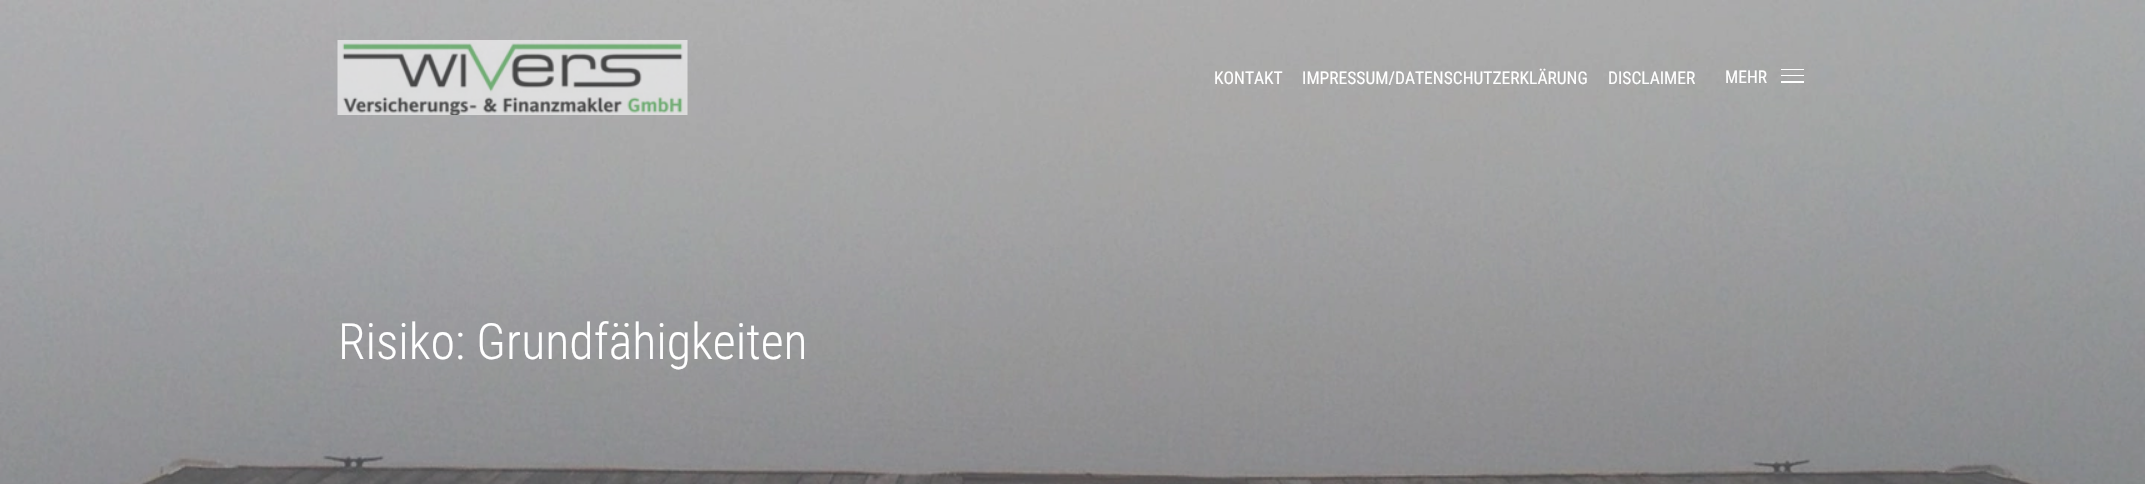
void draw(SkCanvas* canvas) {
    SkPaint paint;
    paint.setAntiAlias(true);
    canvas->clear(0xFFFFFFFF);
    canvas->drawImageRect(SkImages::DeferredFromEncodedData(SkData::MakeFromFileName("img2.png")), SkRect::MakeXYWH(0, 0, 2145, 484), SkSamplingOptions());
    canvas->drawImageRect(SkImages::DeferredFromEncodedData(SkData::MakeFromFileName("img1.png")), SkRect::MakeXYWH(337, 40, 351, 75), SkSamplingOptions());
    SkFont font1(fontMgr->matchFamilyStyle("Roboto Condensed", SkFontStyle::Normal()), 17.5f);
    font1.setSubpixel(true);
    paint.setColor(0xFFFFFFFF);
    canvas->drawString("KONTAKT", 1214, 84, font1, paint);
    canvas->drawString("IMPRESSUM/DATENSCHUTZERKLÄRUNG", 1302, 84, font1, paint);
    canvas->drawString("DISCLAIMER", 1608, 84, font1, paint);
    canvas->drawString("MEHR", 1725, 83, font1, paint);
    canvas->drawRect(SkRect::MakeXYWH(1781, 69, 23, 1), paint);
    canvas->drawRect(SkRect::MakeXYWH(1781, 75, 23, 1), paint);
    canvas->drawRect(SkRect::MakeXYWH(1781, 81, 23, 2), paint);
    SkFont font2(fontMgr->matchFamilyStyle("Roboto Condensed", SkFontStyle(300, SkFontStyle::kNormal_Width, SkFontStyle::kUpright_Slant)), 50);
    font2.setSubpixel(true);
    canvas->drawString("Risiko: Grundfähigkeiten", 338, 359, font2, paint);
}
